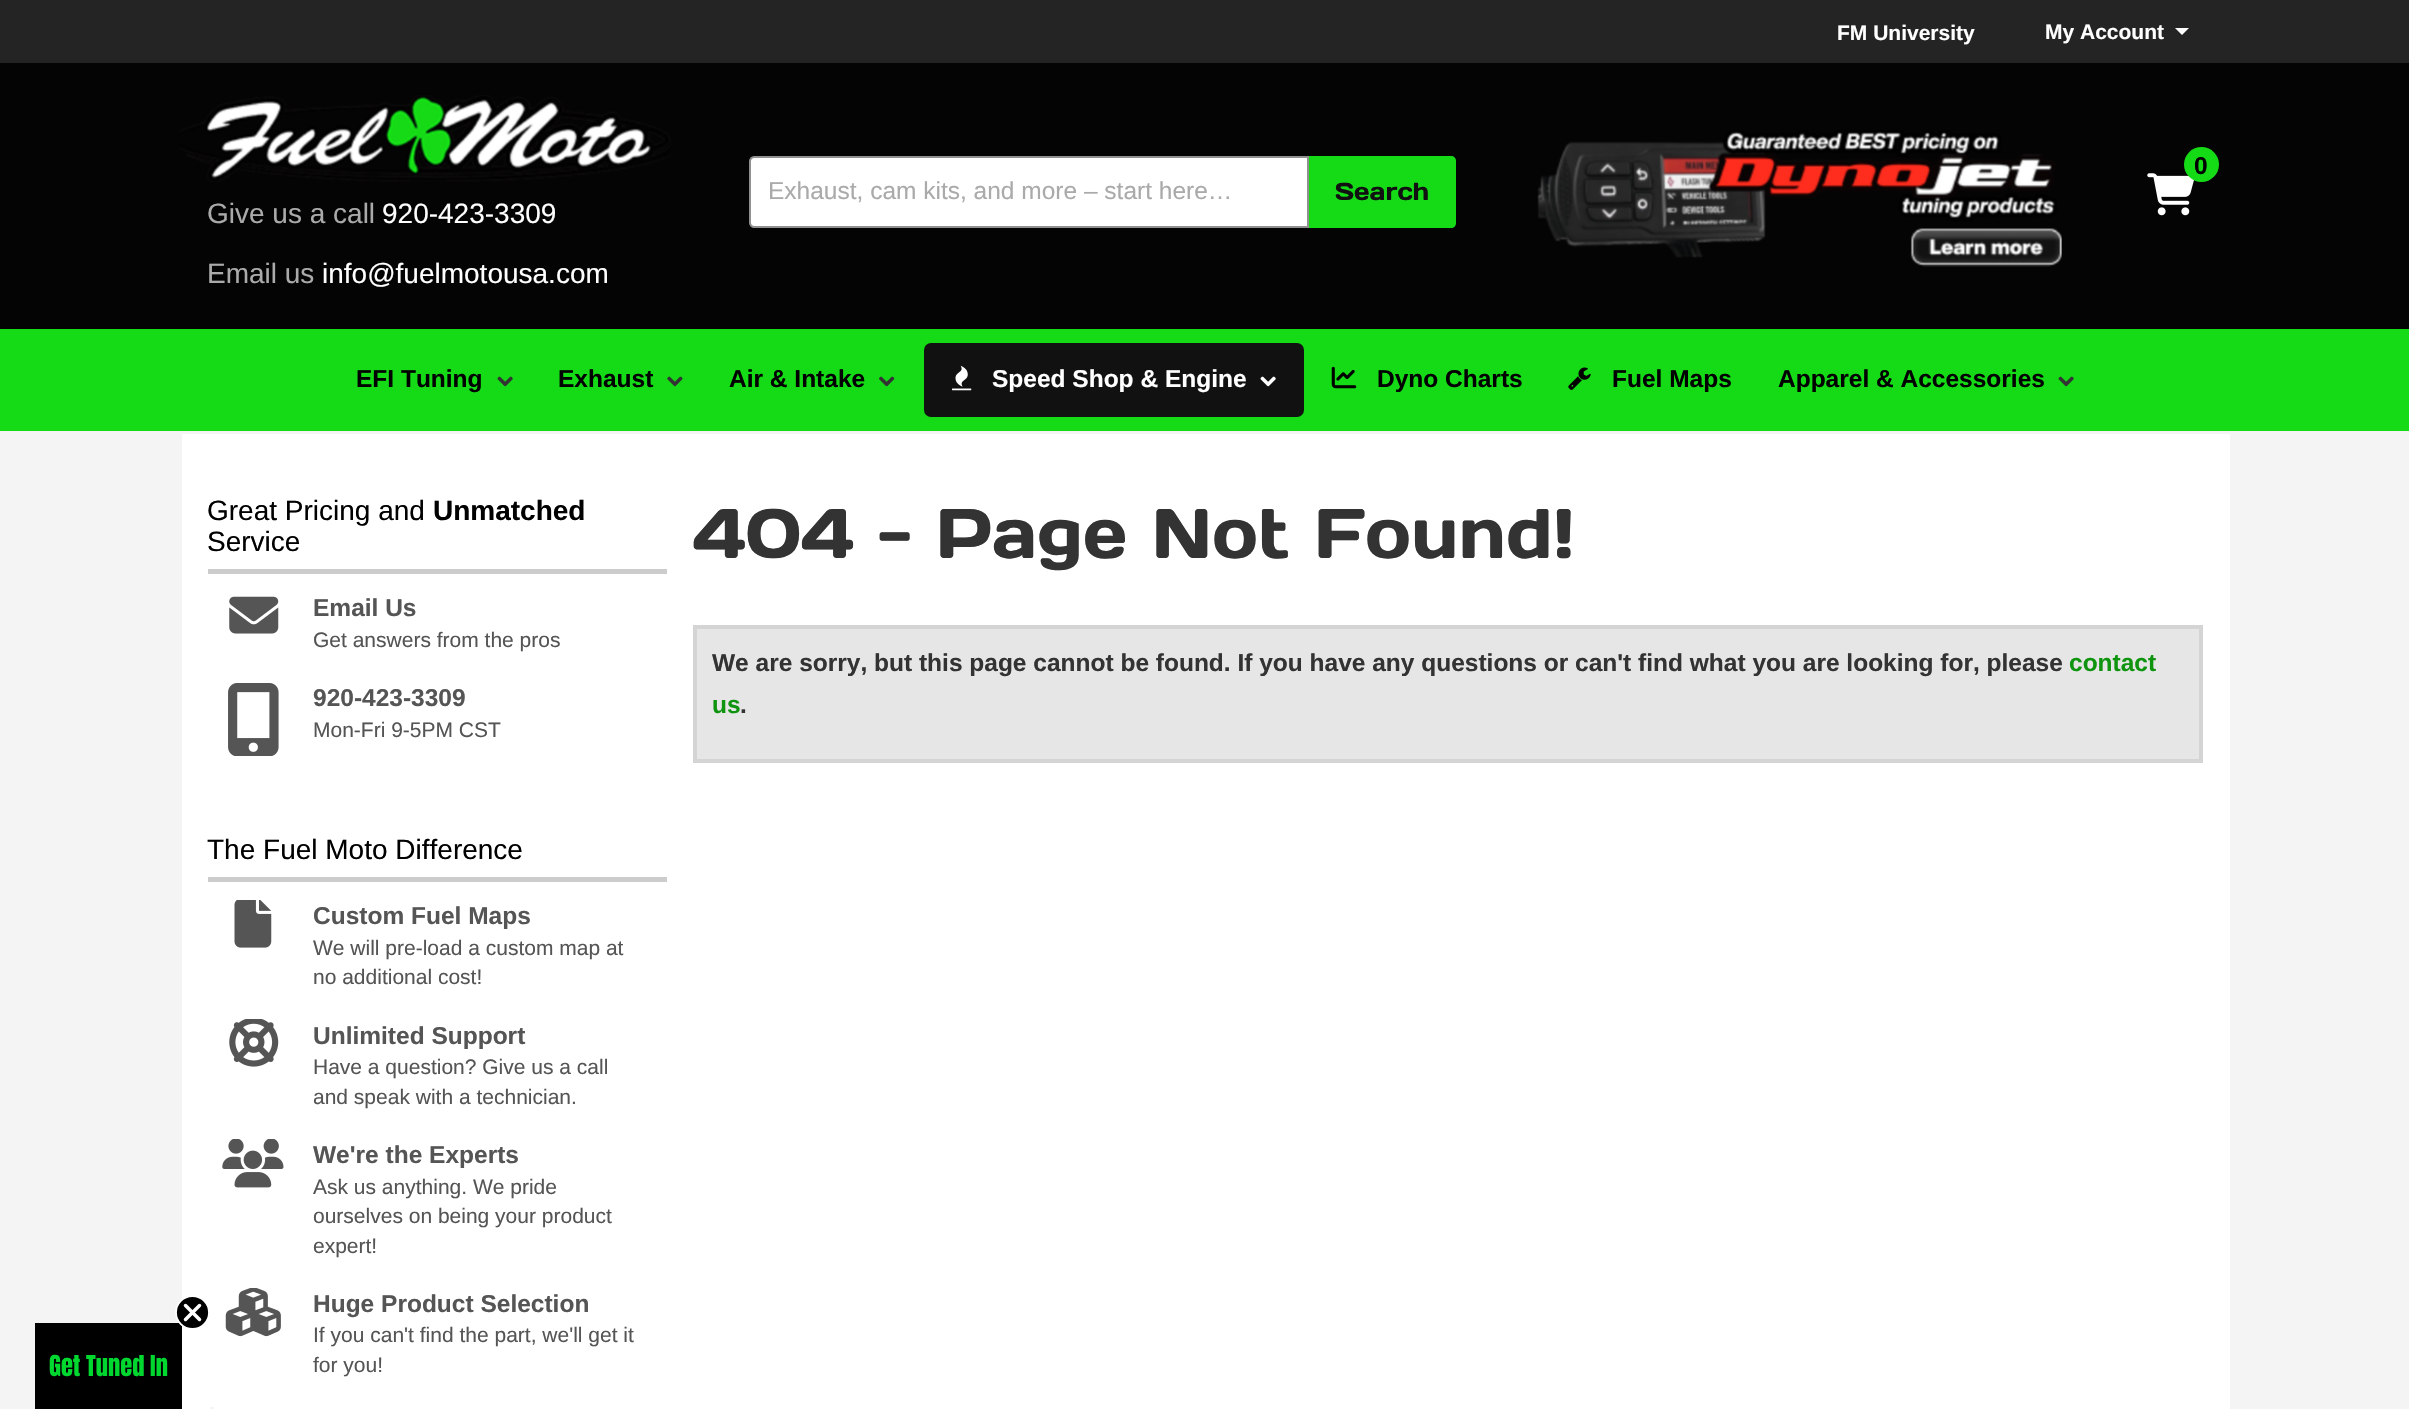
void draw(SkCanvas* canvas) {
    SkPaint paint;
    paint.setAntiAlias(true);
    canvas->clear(0xFFF4F4F4);
    paint.setColor(0xFF050404);
    canvas->drawRect(SkRect::MakeXYWH(0, 63, 2409, 266), paint);
    paint.setColor(0xFF242424);
    canvas->drawRect(SkRect::MakeXYWH(0, 0, 2409, 63), paint);
    SkFont font1(fontMgr->matchFamilyStyle("Arimo", SkFontStyle::Bold()), 21);
    font1.setSubpixel(true);
    paint.setColor(0xFFFFFFFF);
    canvas->drawString("FM University", 1837, 40, font1, paint);
    canvas->drawString("My Account", 2045, 39, font1, paint);
    canvas->drawPath(SkPathBuilder().moveTo(2175, 28).lineTo(2189, 28).lineTo(2182, 35).close().detach(), paint);
    canvas->drawImageRect(SkImages::DeferredFromEncodedData(SkData::MakeFromFileName("img1.png")), SkRect::MakeXYWH(1537, 130, 525, 137), SkSamplingOptions());
    canvas->drawImageRect(SkImages::DeferredFromEncodedData(SkData::MakeFromFileName("img2.png")), SkRect::MakeXYWH(2147, 173, 47, 43), SkSamplingOptions());
    paint.setColor(0xFF15DA16);
    canvas->drawCircle(2201.5f, 164.5f, 17.5f, paint);
    SkFont font2(fontMgr->matchFamilyStyle("Arimo", SkFontStyle::Bold()), 24.5f);
    font2.setSubpixel(true);
    paint.setColor(0xFF000000);
    canvas->drawString("0", 2194, 174, font2, paint);
    paint.setColor(0xFFFFFFFF);
    canvas->drawPath(SkPathBuilder().moveTo(754, 157).lineTo(1308, 157).lineTo(1308, 227).lineTo(754, 227).cubicTo(752, 227, 750, 225, 750, 223).lineTo(750, 161).cubicTo(750, 159, 752, 157, 754, 157).close().detach(), paint);
    paint.setStyle(SkPaint::kStroke_Style);
    paint.setStrokeWidth(2);
    paint.setColor(0xFF909090);
    canvas->drawPath(SkPathBuilder().moveTo(754, 157).lineTo(1308, 157).lineTo(1308, 227).lineTo(754, 227).cubicTo(752, 227, 750, 225, 750, 223).lineTo(750, 161).cubicTo(750, 159, 752, 157, 754, 157).close().detach(), paint);
    SkFont font3(fontMgr->matchFamilyStyle("Arimo", SkFontStyle::Normal()), 24.5f);
    font3.setSubpixel(true);
    paint.setStyle(SkPaint::kFill_Style);
    paint.setColor(0xFFAAAAAA);
    canvas->drawString("Exhaust, cam kits, and more – start here…", 768, 199, font3, paint);
    paint.setColor(0xFF15DA16);
    canvas->drawPath(SkPathBuilder().moveTo(1309, 156).lineTo(1451, 156).cubicTo(1454, 156, 1456, 158, 1456, 161).lineTo(1456, 223).cubicTo(1456, 226, 1454, 228, 1451, 228).lineTo(1309, 228).close().detach(), paint);
    SkFont font4(fontMgr->matchFamilyStyle("Days One", SkFontStyle::Normal()), 24.5f);
    font4.setSubpixel(true);
    paint.setColor(0xFF111111);
    canvas->drawString("Search", 1335, 200, font4, paint);
    canvas->drawImageRect(SkImages::DeferredFromEncodedData(SkData::MakeFromFileName("img3.png")), SkRect::MakeXYWH(179, 95, 492, 87), SkSamplingOptions());
    SkFont font5(fontMgr->matchFamilyStyle("Arimo", SkFontStyle::Normal()), 28);
    font5.setSubpixel(true);
    paint.setColor(0xFFAAAAAA);
    canvas->drawString("Give us a call", 207, 223, font5, paint);
    paint.setColor(0xFFFFFFFF);
    canvas->drawString("920-423-3309", 382, 223, font5, paint);
    paint.setColor(0xFFAAAAAA);
    canvas->drawString("Email us", 207, 283, font5, paint);
    paint.setColor(0xFFFFFFFF);
    canvas->drawString("info@fuelmotousa.com", 322, 283, font5, paint);
    paint.setColor(0xFF15DA16);
    canvas->drawRect(SkRect::MakeXYWH(0, 329, 2409, 102), paint);
    paint.setColor(0xFF000000);
    canvas->drawString("EFI Tuning", 356, 387, font2, paint);
    canvas->drawImageRect(SkImages::DeferredFromEncodedData(SkData::MakeFromFileName("img4.png")), SkRect::MakeXYWH(497, 376, 16, 11), SkSamplingOptions());
    canvas->drawString("Exhaust", 558, 387, font2, paint);
    canvas->drawImageRect(SkImages::DeferredFromEncodedData(SkData::MakeFromFileName("img5.png")), SkRect::MakeXYWH(667, 376, 16, 11), SkSamplingOptions());
    canvas->drawString("Air & Intake", 729, 387, font2, paint);
    canvas->drawImageRect(SkImages::DeferredFromEncodedData(SkData::MakeFromFileName("img6.png")), SkRect::MakeXYWH(879, 376, 16, 11), SkSamplingOptions());
    paint.setColor(0xFF111111);
    canvas->drawRoundRect(SkRect::MakeXYWH(924, 343, 380, 74), 7, 7, paint);
    canvas->drawImageRect(SkImages::DeferredFromEncodedData(SkData::MakeFromFileName("img7.png")), SkRect::MakeXYWH(952, 365, 20, 26), SkSamplingOptions());
    paint.setColor(0xFFFFFFFF);
    canvas->drawString("Speed Shop & Engine", 992, 387, font2, paint);
    canvas->drawImageRect(SkImages::DeferredFromEncodedData(SkData::MakeFromFileName("img8.png")), SkRect::MakeXYWH(1260, 376, 16, 11), SkSamplingOptions());
    canvas->drawImageRect(SkImages::DeferredFromEncodedData(SkData::MakeFromFileName("img9.png")), SkRect::MakeXYWH(1331, 366, 26, 23), SkSamplingOptions());
    paint.setColor(0xFF000000);
    canvas->drawString("Dyno Charts", 1377, 387, font2, paint);
    canvas->drawImageRect(SkImages::DeferredFromEncodedData(SkData::MakeFromFileName("img10.png")), SkRect::MakeXYWH(1568, 367, 23, 23), SkSamplingOptions());
    canvas->drawString("Fuel Maps", 1612, 387, font2, paint);
    canvas->drawString("Apparel & Accessories", 1778, 387, font2, paint);
    canvas->drawImageRect(SkImages::DeferredFromEncodedData(SkData::MakeFromFileName("img4.png")), SkRect::MakeXYWH(2058, 376, 16, 11), SkSamplingOptions());
    canvas->drawRect(SkRect::MakeXYWH(35, 1323, 147, 86), paint);
    paint.setColor(0xFFFFFFFF);
    canvas->drawRect(SkRect::MakeXYWH(182, 434, 2048, 975), paint);
    paint.setColor(0xFF000000);
    canvas->drawCircle(192.5f, 1312.5f, 16.5f, paint);
    paint.setStyle(SkPaint::kStroke_Style);
    paint.setStrokeWidth(1.8f);
    paint.setColor(0xFFFFFFFF);
    canvas->drawCircle(192.5f, 1312.5f, 16.5f, paint);
    paint.setStrokeWidth(3.5f);
    paint.setStrokeCap(SkPaint::kRound_Cap);
    paint.setStrokeJoin(SkPaint::kRound_Join);
    canvas->drawPath(SkPathBuilder().moveTo(185.5f, 1305.5f).lineTo(199.5f, 1319.5f).moveTo(185.5f, 1319.5f).lineTo(199.5f, 1305.5f).close().detach(), paint);
    SkFont font6(fontMgr->matchFamilyStyle("Anton", SkFontStyle::Normal()), 24.5f);
    font6.setSubpixel(true);
    paint.setStyle(SkPaint::kFill_Style);
    paint.setColor(0xFF00D72F);
    canvas->drawString("Get Tuned In", 49, 1376, font6, paint);
    paint.setColor(0xFFCCCCCC);
    canvas->drawRect(SkRect::MakeXYWH(208, 569, 459, 5), paint);
    paint.setColor(0xFF000000);
    canvas->drawString("Great Pricing and", 207, 520, font5, paint);
    SkFont font7(fontMgr->matchFamilyStyle("Arimo", SkFontStyle::Bold()), 28);
    font7.setSubpixel(true);
    canvas->drawString("Unmatched", 433, 520, font7, paint);
    canvas->drawString("Service", 207, 551, font5, paint);
    canvas->drawImageRect(SkImages::DeferredFromEncodedData(SkData::MakeFromFileName("img11.png")), SkRect::MakeXYWH(229, 596, 50, 38), SkSamplingOptions());
    paint.setColor(0xFF555555);
    canvas->drawString("Email Us", 313, 616, font2, paint);
    SkFont font8(fontMgr->matchFamilyStyle("Arimo", SkFontStyle::Normal()), 21);
    font8.setSubpixel(true);
    canvas->drawString("Get answers from the pros", 313, 647, font8, paint);
    canvas->drawImageRect(SkImages::DeferredFromEncodedData(SkData::MakeFromFileName("img12.png")), SkRect::MakeXYWH(228, 683, 51, 73), SkSamplingOptions());
    canvas->drawString("920-423-3309", 313, 706, font2, paint);
    canvas->drawString("Mon-Fri 9-5PM CST", 313, 737, font8, paint);
    paint.setColor(0xFFCCCCCC);
    canvas->drawRect(SkRect::MakeXYWH(208, 877, 459, 5), paint);
    paint.setColor(0xFF000000);
    canvas->drawString("The Fuel Moto Difference", 207, 859, font5, paint);
    canvas->drawImageRect(SkImages::DeferredFromEncodedData(SkData::MakeFromFileName("img13.png")), SkRect::MakeXYWH(234, 900, 38, 48), SkSamplingOptions());
    paint.setColor(0xFF555555);
    canvas->drawString("Custom Fuel Maps", 313, 924, font2, paint);
    canvas->drawString("We will pre-load a custom map at", 313, 955, font8, paint);
    canvas->drawString("no additional cost!", 313, 984, font8, paint);
    canvas->drawImageRect(SkImages::DeferredFromEncodedData(SkData::MakeFromFileName("img14.png")), SkRect::MakeXYWH(229, 1019, 50, 48), SkSamplingOptions());
    canvas->drawString("Unlimited Support", 313, 1044, font2, paint);
    canvas->drawString("Have a question? Give us a call", 313, 1074, font8, paint);
    canvas->drawString("and speak with a technician.", 313, 1104, font8, paint);
    canvas->drawImageRect(SkImages::DeferredFromEncodedData(SkData::MakeFromFileName("img15.png")), SkRect::MakeXYWH(222, 1139, 62, 49), SkSamplingOptions());
    canvas->drawString("We're the Experts", 313, 1163, font2, paint);
    canvas->drawString("Ask us anything. We pride", 313, 1194, font8, paint);
    canvas->drawString("ourselves on being your product", 313, 1223, font8, paint);
    canvas->drawString("expert!", 313, 1253, font8, paint);
    canvas->drawImageRect(SkImages::DeferredFromEncodedData(SkData::MakeFromFileName("img16.png")), SkRect::MakeXYWH(225, 1288, 56, 49), SkSamplingOptions());
    canvas->drawString("Huge Product Selection", 313, 1312, font2, paint);
    canvas->drawString("If you can't find the part, we'll get it", 313, 1342, font8, paint);
    canvas->drawString("for you!", 313, 1372, font8, paint);
    SkFont font9(fontMgr->matchFamilyStyle("Days One", SkFontStyle::Normal()), 70);
    font9.setSubpixel(true);
    paint.setColor(0xFF333333);
    canvas->drawString("404 - Page Not Found!", 693, 558, font9, paint);
    paint.setColor(0xFFE6E6E6);
    canvas->drawRect(SkRect::MakeXYWH(695, 627, 1506, 134), paint);
    paint.setStyle(SkPaint::kStroke_Style);
    paint.setStrokeWidth(4);
    paint.setStrokeCap(SkPaint::kButt_Cap);
    paint.setStrokeJoin(SkPaint::kMiter_Join);
    paint.setColor(0xFFD4D4D4);
    canvas->drawRect(SkRect::MakeXYWH(695, 627, 1506, 134), paint);
    paint.setStyle(SkPaint::kFill_Style);
    paint.setColor(0xFF333333);
    canvas->drawString("We are sorry, but this page cannot be found. If you have any questions or can't find what you are looking for, please", 712, 671, font2, paint);
    paint.setColor(0xFF0F940F);
    canvas->drawString("contact", 2069, 671, font2, paint);
    canvas->drawString("us", 712, 713, font2, paint);
    paint.setColor(0xFF333333);
    canvas->drawString(".", 740, 713, font2, paint);
    paint.setColor(0xFFF5F5F5);
    canvas->drawRect(SkRect::MakeXYWH(210, 1407, 4, 2), paint);
}
